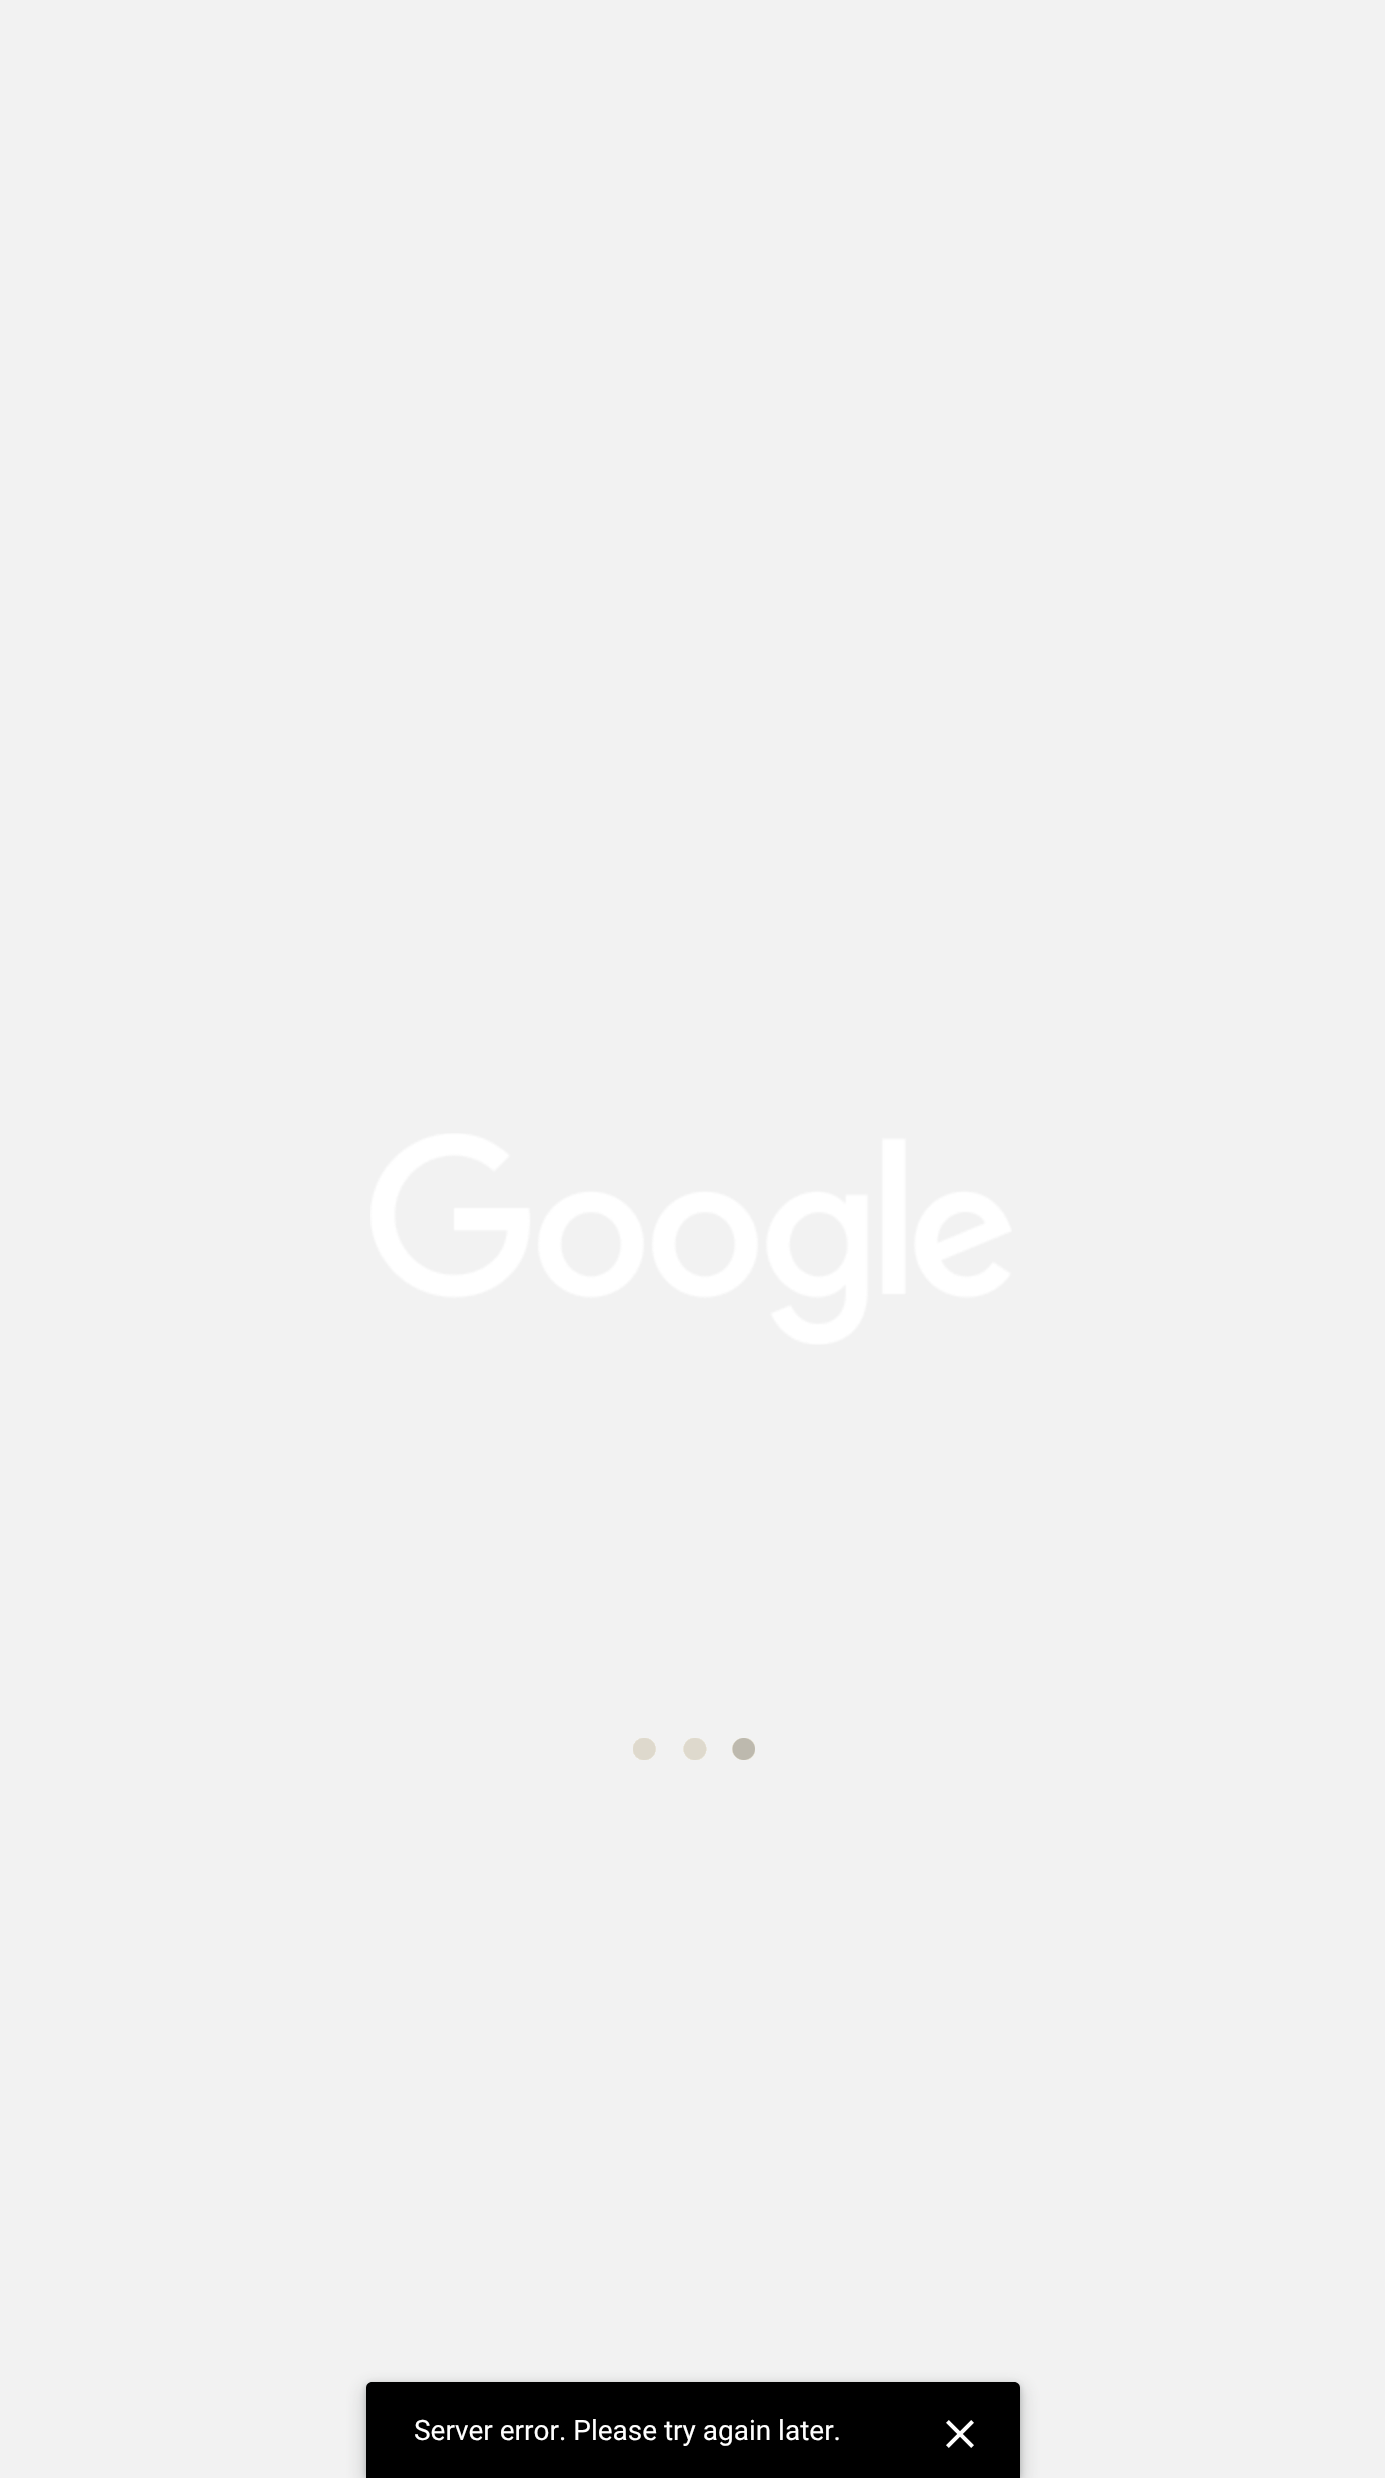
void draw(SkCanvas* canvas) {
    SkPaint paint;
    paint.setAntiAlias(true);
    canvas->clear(0xFFF2F2F2);
    canvas->drawImageRect(SkImages::DeferredFromEncodedData(SkData::MakeFromFileName("img1.png")), SkRect::MakeXYWH(370, 1133, 642, 212), SkSamplingOptions());
    canvas->drawImageRect(SkImages::DeferredFromEncodedData(SkData::MakeFromFileName("img2.png")), SkRect::MakeXYWH(633, 1738, 122, 22), SkSamplingOptions());
    paint.setColor(0x263C4043);
    paint.setMaskFilter(SkMaskFilter::MakeBlur(kNormal_SkBlurStyle, 8));
    canvas->drawRoundRect(SkRect::MakeXYWH(360, 2384, 666, 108), 12, 12, paint);
    paint.setMaskFilter(nullptr);
    paint.setColor(0x4D3C4043);
    paint.setMaskFilter(SkMaskFilter::MakeBlur(kNormal_SkBlurStyle, 3));
    canvas->drawRoundRect(SkRect::MakeXYWH(366, 2384, 654, 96), 6, 6, paint);
    paint.setMaskFilter(nullptr);
    paint.setColor(0xFF000000);
    canvas->drawPath(SkPathBuilder().moveTo(372, 2382).lineTo(1014, 2382).cubicTo(1017.5f, 2382, 1020, 2384.5f, 1020, 2388).lineTo(1020, 2478).lineTo(366, 2478).lineTo(366, 2388).cubicTo(366, 2384.5f, 368.5f, 2382, 372, 2382).close().detach(), paint);
    SkFont font1(fontMgr->matchFamilyStyle("Roboto", SkFontStyle::Normal()), 28);
    font1.setSubpixel(true);
    paint.setColor(0xFFFFFFFF);
    canvas->drawString("Server error. Please try again later.", 414, 2440, font1, paint);
    canvas->drawImageRect(SkImages::DeferredFromEncodedData(SkData::MakeFromFileName("img3.png")), SkRect::MakeXYWH(946, 2420, 28, 28), SkSamplingOptions());
}
